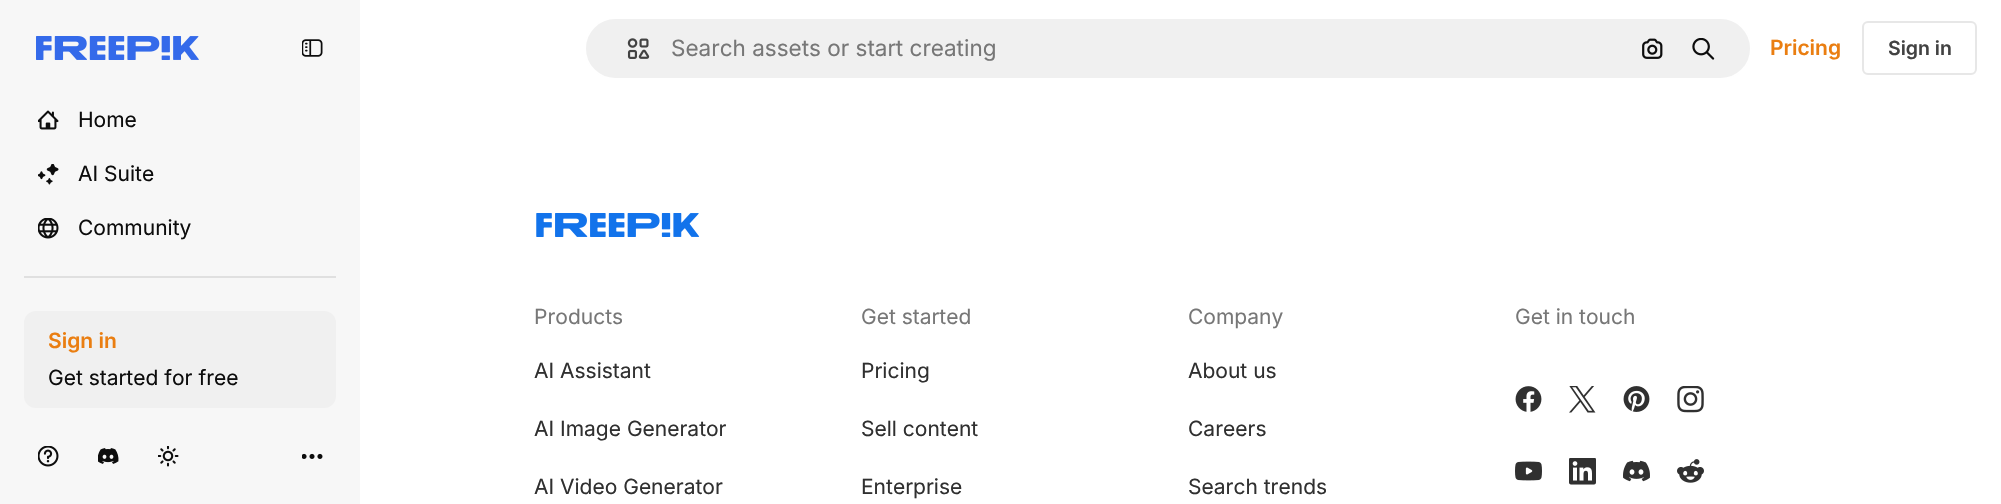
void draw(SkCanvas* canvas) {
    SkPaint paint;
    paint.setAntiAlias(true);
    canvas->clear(0xFFF7F7F7);
    canvas->drawImageRect(SkImages::DeferredFromEncodedData(SkData::MakeFromFileName("img1.png")), SkRect::MakeXYWH(36, 36, 163, 24), SkSamplingOptions());
    canvas->drawImageRect(SkImages::DeferredFromEncodedData(SkData::MakeFromFileName("img2.png")), SkRect::MakeXYWH(302, 39, 21, 18), SkSamplingOptions());
    canvas->drawImageRect(SkImages::DeferredFromEncodedData(SkData::MakeFromFileName("img3.png")), SkRect::MakeXYWH(38, 110, 21, 20), SkSamplingOptions());
    SkFont font1(fontMgr->matchFamilyStyle("Inter", SkFontStyle::Normal()), 21);
    font1.setSubpixel(true);
    paint.setColor(0xFF0D0D0D);
    canvas->drawString("Home", 78, 127, font1, paint);
    canvas->drawImageRect(SkImages::DeferredFromEncodedData(SkData::MakeFromFileName("img4.png")), SkRect::MakeXYWH(38, 164, 21, 21), SkSamplingOptions());
    canvas->drawString("AI Suite", 78, 181, font1, paint);
    canvas->drawImageRect(SkImages::DeferredFromEncodedData(SkData::MakeFromFileName("img5.png")), SkRect::MakeXYWH(38, 218, 21, 21), SkSamplingOptions());
    canvas->drawString("Community", 78, 235, font1, paint);
    paint.setColor(0xFFE0E0E0);
    canvas->drawRect(SkRect::MakeXYWH(24, 276, 312, 2), paint);
    paint.setColor(0xFFF0F0F0);
    canvas->drawRoundRect(SkRect::MakeXYWH(24, 311, 312, 97), 12, 12, paint);
    SkFont font2(fontMgr->matchFamilyStyle("Inter", SkFontStyle(600, SkFontStyle::kNormal_Width, SkFontStyle::kUpright_Slant)), 21);
    font2.setSubpixel(true);
    paint.setColor(0xFFEA7E11);
    canvas->drawString("Sign in", 48, 348, font2, paint);
    paint.setColor(0xFF0D0D0D);
    canvas->drawString("Get started for free", 48, 385, font1, paint);
    canvas->drawImageRect(SkImages::DeferredFromEncodedData(SkData::MakeFromFileName("img6.png")), SkRect::MakeXYWH(38, 446, 21, 21), SkSamplingOptions());
    canvas->drawImageRect(SkImages::DeferredFromEncodedData(SkData::MakeFromFileName("img7.png")), SkRect::MakeXYWH(98, 448, 21, 16), SkSamplingOptions());
    canvas->drawImageRect(SkImages::DeferredFromEncodedData(SkData::MakeFromFileName("img8.png")), SkRect::MakeXYWH(158, 446, 21, 21), SkSamplingOptions());
    canvas->drawImageRect(SkImages::DeferredFromEncodedData(SkData::MakeFromFileName("img9.png")), SkRect::MakeXYWH(302, 453, 21, 6), SkSamplingOptions());
    paint.setColor(0xFFFFFFFF);
    canvas->drawRect(SkRect::MakeXYWH(360, 0, 1641, 504), paint);
    paint.setColor(0xFFF0F0F0);
    canvas->drawRoundRect(SkRect::MakeXYWH(585, 18, 1166, 61), 30.5f, 30.5f, paint);
    paint.setStyle(SkPaint::kStroke_Style);
    paint.setStrokeWidth(2);
    paint.setColor(0xFFFFFFFF);
    canvas->drawRoundRect(SkRect::MakeXYWH(585, 18, 1166, 61), 30.5f, 30.5f, paint);
    canvas->drawImageRect(SkImages::DeferredFromEncodedData(SkData::MakeFromFileName("img10.png")), SkRect::MakeXYWH(627, 38, 23, 21), SkSamplingOptions());
    SkFont font3(fontMgr->matchFamilyStyle("Inter", SkFontStyle::Normal()), 22.5f);
    font3.setSubpixel(true);
    paint.setStyle(SkPaint::kFill_Style);
    paint.setColor(0xFF777777);
    canvas->drawString("Search assets or start creating", 671, 56, font3, paint);
    canvas->drawImageRect(SkImages::DeferredFromEncodedData(SkData::MakeFromFileName("img11.png")), SkRect::MakeXYWH(1642, 38, 21, 21), SkSamplingOptions());
    canvas->drawImageRect(SkImages::DeferredFromEncodedData(SkData::MakeFromFileName("img12.png")), SkRect::MakeXYWH(1692, 38, 23, 22), SkSamplingOptions());
    paint.setColor(0xFFEA7E11);
    canvas->drawString("Pricing", 1770, 55, font2, paint);
    paint.setStyle(SkPaint::kStroke_Style);
    paint.setColor(0xFFE7E7E7);
    canvas->drawRoundRect(SkRect::MakeXYWH(1863, 22, 113, 52), 5, 5, paint);
    SkFont font4(fontMgr->matchFamilyStyle("Inter", SkFontStyle(600, SkFontStyle::kNormal_Width, SkFontStyle::kUpright_Slant)), 19.5f);
    font4.setSubpixel(true);
    paint.setStyle(SkPaint::kFill_Style);
    paint.setColor(0xFF424242);
    canvas->drawString("Sign in", 1888, 55, font4, paint);
    canvas->drawImageRect(SkImages::DeferredFromEncodedData(SkData::MakeFromFileName("img13.png")), SkRect::MakeXYWH(536, 213, 164, 24), SkSamplingOptions());
    paint.setColor(0xFF777777);
    canvas->drawString("Products", 534, 324, font1, paint);
    paint.setColor(0xFF303030);
    canvas->drawString("AI Assistant", 534, 378, font1, paint);
    canvas->drawString("AI Image Generator", 534, 436, font1, paint);
    canvas->drawString("AI Video Generator", 534, 494, font1, paint);
    paint.setColor(0xFF777777);
    canvas->drawString("Get started", 861, 324, font1, paint);
    paint.setColor(0xFF303030);
    canvas->drawString("Pricing", 861, 378, font1, paint);
    canvas->drawString("Sell content", 861, 436, font1, paint);
    canvas->drawString("Enterprise", 861, 494, font1, paint);
    paint.setColor(0xFF777777);
    canvas->drawString("Company", 1188, 324, font1, paint);
    paint.setColor(0xFF303030);
    canvas->drawString("About us", 1188, 378, font1, paint);
    canvas->drawString("Careers", 1188, 436, font1, paint);
    canvas->drawString("Search trends", 1188, 494, font1, paint);
    paint.setColor(0xFF777777);
    canvas->drawString("Get in touch", 1515, 324, font1, paint);
    canvas->drawImageRect(SkImages::DeferredFromEncodedData(SkData::MakeFromFileName("img14.png")), SkRect::MakeXYWH(1515, 386, 27, 26), SkSamplingOptions());
    canvas->drawImageRect(SkImages::DeferredFromEncodedData(SkData::MakeFromFileName("img15.png")), SkRect::MakeXYWH(1569, 386, 27, 27), SkSamplingOptions());
    canvas->drawImageRect(SkImages::DeferredFromEncodedData(SkData::MakeFromFileName("img16.png")), SkRect::MakeXYWH(1623, 386, 27, 26), SkSamplingOptions());
    canvas->drawImageRect(SkImages::DeferredFromEncodedData(SkData::MakeFromFileName("img17.png")), SkRect::MakeXYWH(1677, 386, 27, 27), SkSamplingOptions());
    canvas->drawImageRect(SkImages::DeferredFromEncodedData(SkData::MakeFromFileName("img18.png")), SkRect::MakeXYWH(1515, 461, 27, 20), SkSamplingOptions());
    canvas->drawImageRect(SkImages::DeferredFromEncodedData(SkData::MakeFromFileName("img19.png")), SkRect::MakeXYWH(1569, 458, 27, 27), SkSamplingOptions());
    canvas->drawImageRect(SkImages::DeferredFromEncodedData(SkData::MakeFromFileName("img20.png")), SkRect::MakeXYWH(1623, 460, 27, 22), SkSamplingOptions());
    canvas->drawImageRect(SkImages::DeferredFromEncodedData(SkData::MakeFromFileName("img21.png")), SkRect::MakeXYWH(1677, 459, 27, 24), SkSamplingOptions());
}
